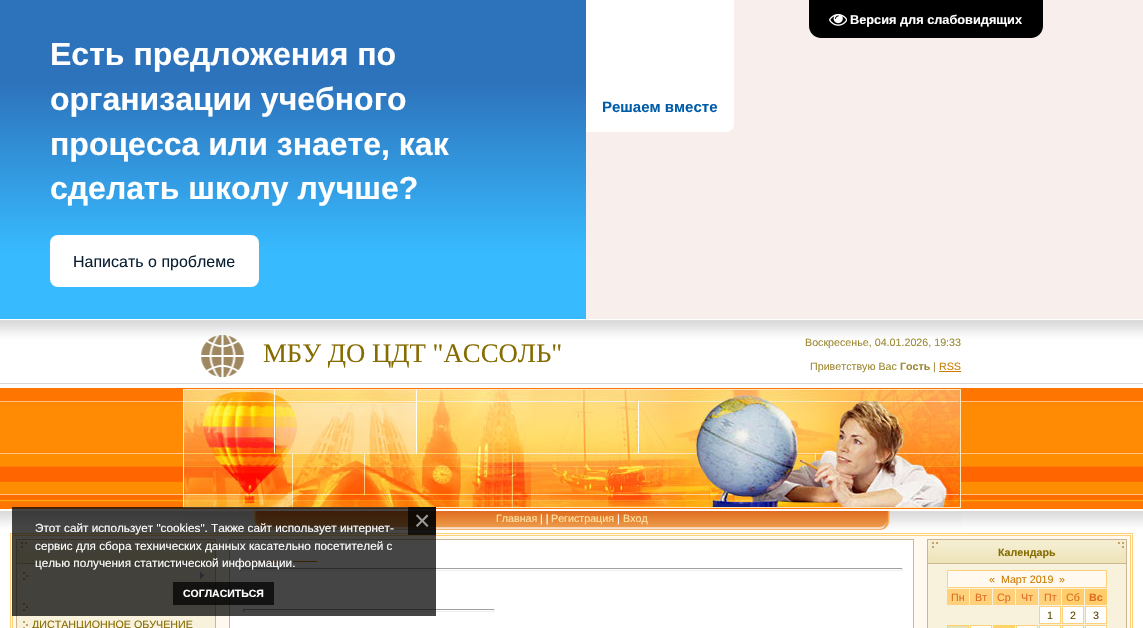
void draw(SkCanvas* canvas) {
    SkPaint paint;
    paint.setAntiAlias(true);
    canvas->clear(0xFFFFFFFF);
    paint.setColor(0xFFF8EFEC);
    canvas->drawRect(SkRect::MakeXYWH(586, 0, 557, 319), paint);
    paint.setColor(0xFF000000);
    canvas->drawPath(SkPathBuilder().moveTo(809, 0).lineTo(1043, 0).lineTo(1043, 26).cubicTo(1043, 32.5f, 1037.5f, 38, 1031, 38).lineTo(821, 38).cubicTo(814.5f, 38, 809, 32.5f, 809, 26).close().detach(), paint);
    canvas->drawImageRect(SkImages::DeferredFromEncodedData(SkData::MakeFromFileName("img1.png")), SkRect::MakeXYWH(829, 13, 18, 13), SkSamplingOptions());
    SkFont font1(fontMgr->matchFamilyStyle("Liberation Sans", SkFontStyle::Bold()), 12.75f);
    font1.setSubpixel(true);
    paint.setColor(0xFFFFFFFF);
    canvas->drawString("Версия для слабовидящих", 850, 24, font1, paint);
    {
        const SkColor colors[] = {0xFF2D73BC, 0xFF38BAFE};
        const float stops[] = {0.26f, 0.79f};
        const SkPoint ends[] = {{572, 0}, {572, 319}};
        paint.setShader(SkGradientShader::MakeLinear(ends, colors, stops, 2, SkTileMode::kClamp));
        paint.setAlpha(255);
    }
    canvas->drawRect(SkRect::MakeXYWH(0, 0, 586, 319), paint);
    SkFont font2(fontMgr->matchFamilyStyle("Liberation Sans", SkFontStyle::Bold()), 32);
    font2.setSubpixel(true);
    paint.setShader(nullptr);
    paint.setColor(0xFFFFFFFF);
    canvas->drawString("Есть предложения по", 50, 65, font2, paint);
    canvas->drawString("организации учебного", 50, 110, font2, paint);
    canvas->drawString("процесса или знаете, как", 50, 155, font2, paint);
    canvas->drawString("сделать школу лучше?", 50, 199, font2, paint);
    canvas->drawRoundRect(SkRect::MakeXYWH(50, 235, 209, 52), 8, 8, paint);
    SkFont font3(fontMgr->matchFamilyStyle("Liberation Sans", SkFontStyle::Normal()), 16);
    font3.setSubpixel(true);
    paint.setColor(0xFF0B1F33);
    canvas->drawString("Написать о проблеме", 73, 267, font3, paint);
    paint.setColor(0xFFFFFFFF);
    canvas->drawPath(SkPathBuilder().moveTo(586, 0).lineTo(734, 0).lineTo(734, 124).cubicTo(734, 128.5f, 730.5f, 132, 726, 132).lineTo(586, 132).close().detach(), paint);
    SkFont font4(fontMgr->matchFamilyStyle("Liberation Sans", SkFontStyle::Bold()), 15);
    font4.setSubpixel(true);
    paint.setColor(0xFF005CA9);
    canvas->drawString("Решаем вместе", 602, 112, font4, paint);
    canvas->drawImageRect(SkImages::DeferredFromEncodedData(SkData::MakeFromFileName("img2.png")), SkRect::MakeXYWH(0, 319, 1143, 214), SkSamplingOptions());
    canvas->drawImageRect(SkImages::DeferredFromEncodedData(SkData::MakeFromFileName("img3.png")), SkRect::MakeXYWH(201, 335, 43, 43), SkSamplingOptions());
    SkFont font5(fontMgr->matchFamilyStyle("Liberation Serif", SkFontStyle::Normal()), 26.75f);
    font5.setSubpixel(true);
    paint.setColor(0xFF856B00);
    canvas->drawString("МБУ ДО ЦДТ \"АССОЛЬ\"", 263, 362, font5, paint);
    SkFont font6(fontMgr->matchFamilyStyle("Liberation Sans", SkFontStyle::Normal()), 10.7f);
    font6.setSubpixel(true);
    paint.setColor(0xFF9D8933);
    canvas->drawString("Воскресенье, 04.01.2026, 19:33", 805, 346, font6, paint);
    canvas->drawString("Приветствую Вас", 810, 370, font6, paint);
    SkFont font7(fontMgr->matchFamilyStyle("Liberation Sans", SkFontStyle::Bold()), 10.7f);
    font7.setSubpixel(true);
    canvas->drawString("Гость", 900, 370, font7, paint);
    canvas->drawString("|", 933, 370, font6, paint);
    paint.setColor(0xFFCC7B00);
    canvas->drawString("RSS", 939, 370, font6, paint);
    canvas->drawRect(SkRect::MakeXYWH(939, 371, 22, 1), paint);
    canvas->drawImageRect(SkImages::DeferredFromEncodedData(SkData::MakeFromFileName("img4.png")), SkRect::MakeXYWH(183, 388, 778, 120), SkSamplingOptions());
    paint.setColor(0xFFFFFFFF);
    canvas->drawRect(SkRect::MakeXYWH(0, 510, 1143, 1), paint);
    canvas->drawImageRect(SkImages::DeferredFromEncodedData(SkData::MakeFromFileName("img5.png")), SkRect::MakeXYWH(265, 511, 614, 19), SkSamplingOptions());
    canvas->drawImageRect(SkImages::DeferredFromEncodedData(SkData::MakeFromFileName("img6.png")), SkRect::MakeXYWH(183, 511, 82, 19), SkSamplingOptions());
    paint.setColor(0xFFFFE2A2);
    canvas->drawString("Главная", 496, 522, font6, paint);
    paint.setColor(0xFFFFFFFF);
    canvas->drawString("| |", 540, 522, font6, paint);
    paint.setColor(0xFFFFE2A2);
    canvas->drawString("Регистрация", 551, 522, font6, paint);
    paint.setColor(0xFFFFFFFF);
    canvas->drawString("|", 617, 522, font6, paint);
    paint.setColor(0xFFFFE2A2);
    canvas->drawString("Вход", 623, 522, font6, paint);
    canvas->drawImageRect(SkImages::DeferredFromEncodedData(SkData::MakeFromFileName("img7.png")), SkRect::MakeXYWH(879, 511, 82, 19), SkSamplingOptions());
    paint.setColor(0xFFFFF9EF);
    canvas->drawRect(SkRect::MakeXYWH(10.5f, 533.5f, 1122, 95), paint);
    paint.setStyle(SkPaint::kStroke_Style);
    paint.setStrokeWidth(1);
    paint.setColor(0xFFFFD17B);
    canvas->drawRect(SkRect::MakeXYWH(10.5f, 533.5f, 1122, 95), paint);
    canvas->drawRect(SkRect::MakeXYWH(12.5f, 535.5f, 1118, 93), paint);
    paint.setColor(0xFFCBB592);
    canvas->drawRect(SkRect::MakeXYWH(229.5f, 539.5f, 684, 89), paint);
    paint.setStyle(SkPaint::kFill_Style);
    paint.setColor(0xFFFFFFFF);
    canvas->drawRect(SkRect::MakeXYWH(230, 540, 683, 88), paint);
    paint.setColor(0xFFCC7B00);
    canvas->drawRect(SkRect::MakeXYWH(240, 561, 41, 1), paint);
    canvas->drawRect(SkRect::MakeXYWH(293, 561, 24, 1), paint);
    paint.setColor(0xFF9F9F9F);
    canvas->drawRect(SkRect::MakeXYWH(240, 568, 663, 1), paint);
    paint.setColor(0xFFEEEEEE);
    canvas->drawRect(SkRect::MakeXYWH(902, 568, 1, 3), paint);
    canvas->drawRect(SkRect::MakeXYWH(240, 570, 663, 1), paint);
    paint.setColor(0xFF9F9F9F);
    canvas->drawRect(SkRect::MakeXYWH(240, 568, 1, 3), paint);
    canvas->drawRect(SkRect::MakeXYWH(243, 609, 252, 1), paint);
    paint.setColor(0xFFEEEEEE);
    canvas->drawRect(SkRect::MakeXYWH(494, 609, 1, 3), paint);
    canvas->drawRect(SkRect::MakeXYWH(243, 611, 252, 1), paint);
    paint.setColor(0xFF9F9F9F);
    canvas->drawRect(SkRect::MakeXYWH(243, 609, 1, 3), paint);
    paint.setColor(0xFFCBB592);
    canvas->drawRect(SkRect::MakeXYWH(16, 539, 200, 89), paint);
    canvas->drawImageRect(SkImages::DeferredFromEncodedData(SkData::MakeFromFileName("img8.png")), SkRect::MakeXYWH(17, 540, 198, 23), SkSamplingOptions());
    paint.setColor(0xFFF8F1DC);
    canvas->drawRect(SkRect::MakeXYWH(17, 564, 198, 64), paint);
    canvas->drawImageRect(SkImages::DeferredFromEncodedData(SkData::MakeFromFileName("img9.png")), SkRect::MakeXYWH(23, 572, 5, 8), SkSamplingOptions());
    canvas->drawImageRect(SkImages::DeferredFromEncodedData(SkData::MakeFromFileName("img10.png")), SkRect::MakeXYWH(200, 572, 4, 7), SkSamplingOptions());
    canvas->drawImageRect(SkImages::DeferredFromEncodedData(SkData::MakeFromFileName("img9.png")), SkRect::MakeXYWH(23, 603, 5, 8), SkSamplingOptions());
    paint.setColor(0xBA000000);
    canvas->drawRect(SkRect::MakeXYWH(12, 507, 424, 109), paint);
    canvas->drawRect(SkRect::MakeXYWH(408, 507, 28, 28), paint);
    SkFont font8(fontMgr->matchFamilyStyle("Liberation Sans", SkFontStyle::Normal()), 28);
    font8.setSubpixel(true);
    paint.setColor(0xFF999999);
    canvas->drawString("×", 414, 530, font8, paint);
    paint.setColor(0xBA000000);
    canvas->drawRect(SkRect::MakeXYWH(173, 582, 101, 23), paint);
    SkFont font9(fontMgr->matchFamilyStyle("Liberation Sans", SkFontStyle::Bold()), 10.5f);
    font9.setSubpixel(true);
    paint.setColor(0xFFFFFFFF);
    canvas->drawString("СОГЛАСИТЬСЯ", 183, 597, font9, paint);
    SkFont font10(fontMgr->matchFamilyStyle("Liberation Sans", SkFontStyle::Normal()), 11.75f);
    font10.setSubpixel(true);
    canvas->drawString("Этот сайт использует \"cookies\". Также сайт использует интернет-", 35, 532, font10, paint);
    canvas->drawString("сервис для сбора технических данных касательно посетителей с", 35, 550, font10, paint);
    canvas->drawString("целью получения статистической информации.", 35, 567, font10, paint);
    paint.setColor(0xFFCBB592);
    canvas->drawRect(SkRect::MakeXYWH(927, 539, 200, 89), paint);
    canvas->drawImageRect(SkImages::DeferredFromEncodedData(SkData::MakeFromFileName("img8.png")), SkRect::MakeXYWH(928, 540, 198, 23), SkSamplingOptions());
    paint.setColor(0xFF856B00);
    canvas->drawString("Календарь", 998, 556, font7, paint);
    paint.setColor(0xFFF8F1DC);
    canvas->drawRect(SkRect::MakeXYWH(928, 564, 198, 64), paint);
    paint.setColor(0xFFFFF9EF);
    canvas->drawRect(SkRect::MakeXYWH(947.5f, 570.5f, 159, 17), paint);
    paint.setStyle(SkPaint::kStroke_Style);
    paint.setColor(0xFFFFD17B);
    canvas->drawRect(SkRect::MakeXYWH(947.5f, 570.5f, 159, 17), paint);
    paint.setStyle(SkPaint::kFill_Style);
    paint.setColor(0xFFCC7B00);
    canvas->drawString("«", 989, 583, font6, paint);
    canvas->drawString("Март 2019", 1001, 583, font6, paint);
    canvas->drawString("»", 1059, 583, font6, paint);
    paint.setColor(0xFFFFD17B);
    canvas->drawRect(SkRect::MakeXYWH(947, 589, 22, 16), paint);
    paint.setColor(0xFFDE6C22);
    canvas->drawString("Пн", 951, 601, font6, paint);
    paint.setColor(0xFFFFD17B);
    canvas->drawRect(SkRect::MakeXYWH(970, 589, 22, 16), paint);
    paint.setColor(0xFFDE6C22);
    canvas->drawString("Вт", 975, 601, font6, paint);
    paint.setColor(0xFFFFD17B);
    canvas->drawRect(SkRect::MakeXYWH(993, 589, 22, 16), paint);
    paint.setColor(0xFFDE6C22);
    canvas->drawString("Ср", 997, 601, font6, paint);
    paint.setColor(0xFFFFD17B);
    canvas->drawRect(SkRect::MakeXYWH(1016, 589, 22, 16), paint);
    paint.setColor(0xFFDE6C22);
    canvas->drawString("Чт", 1021, 601, font6, paint);
    paint.setColor(0xFFFFD17B);
    canvas->drawRect(SkRect::MakeXYWH(1039, 589, 22, 16), paint);
    paint.setColor(0xFFDE6C22);
    canvas->drawString("Пт", 1044, 601, font6, paint);
    paint.setColor(0xFFFFCE6B);
    canvas->drawRect(SkRect::MakeXYWH(1062, 589, 22, 16), paint);
    paint.setColor(0xFFDE6C22);
    canvas->drawString("Сб", 1066, 601, font6, paint);
    paint.setColor(0xFFFFCE6B);
    canvas->drawRect(SkRect::MakeXYWH(1085, 589, 22, 16), paint);
    paint.setColor(0xFFDE6C22);
    canvas->drawString("Вс", 1089, 601, font7, paint);
    paint.setColor(0xFFFFFFFF);
    canvas->drawRect(SkRect::MakeXYWH(1039.5f, 606.5f, 21, 17), paint);
    paint.setStyle(SkPaint::kStroke_Style);
    paint.setColor(0xFFFFD17B);
    canvas->drawRect(SkRect::MakeXYWH(1039.5f, 606.5f, 21, 17), paint);
    paint.setStyle(SkPaint::kFill_Style);
    paint.setColor(0xFF5D4B00);
    canvas->drawString("1", 1047, 619, font6, paint);
    paint.setColor(0xFFFFFFFF);
    canvas->drawRect(SkRect::MakeXYWH(1062.5f, 606.5f, 21, 17), paint);
    paint.setStyle(SkPaint::kStroke_Style);
    paint.setColor(0xFFFFD17B);
    canvas->drawRect(SkRect::MakeXYWH(1062.5f, 606.5f, 21, 17), paint);
    paint.setStyle(SkPaint::kFill_Style);
    paint.setColor(0xFF5D4B00);
    canvas->drawString("2", 1070, 619, font6, paint);
    paint.setColor(0xFFFFFFFF);
    canvas->drawRect(SkRect::MakeXYWH(1085.5f, 606.5f, 21, 17), paint);
    paint.setStyle(SkPaint::kStroke_Style);
    paint.setColor(0xFFFFD17B);
    canvas->drawRect(SkRect::MakeXYWH(1085.5f, 606.5f, 21, 17), paint);
    paint.setStyle(SkPaint::kFill_Style);
    paint.setColor(0xFF5D4B00);
    canvas->drawString("3", 1093, 619, font6, paint);
    paint.setColor(0xFFE4DFBE);
    canvas->drawRect(SkRect::MakeXYWH(947.5f, 625.5f, 21, 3), paint);
    paint.setStyle(SkPaint::kStroke_Style);
    paint.setColor(0xFFFFD464);
    canvas->drawRect(SkRect::MakeXYWH(947.5f, 625.5f, 21, 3), paint);
    paint.setStyle(SkPaint::kFill_Style);
    paint.setColor(0xFFFFFFFF);
    canvas->drawRect(SkRect::MakeXYWH(970.5f, 625.5f, 21, 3), paint);
    paint.setStyle(SkPaint::kStroke_Style);
    paint.setColor(0xFFFFD17B);
    canvas->drawRect(SkRect::MakeXYWH(970.5f, 625.5f, 21, 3), paint);
    paint.setStyle(SkPaint::kFill_Style);
    paint.setColor(0xFFFFD464);
    canvas->drawRect(SkRect::MakeXYWH(993, 625, 22, 3), paint);
    paint.setColor(0xFFFFFFFF);
    canvas->drawRect(SkRect::MakeXYWH(1016.5f, 625.5f, 21, 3), paint);
    paint.setStyle(SkPaint::kStroke_Style);
    paint.setColor(0xFFFFD17B);
    canvas->drawRect(SkRect::MakeXYWH(1016.5f, 625.5f, 21, 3), paint);
    paint.setStyle(SkPaint::kFill_Style);
    paint.setColor(0xFFFFFFFF);
    canvas->drawRect(SkRect::MakeXYWH(1039.5f, 625.5f, 21, 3), paint);
    paint.setStyle(SkPaint::kStroke_Style);
    paint.setColor(0xFFFFD17B);
    canvas->drawRect(SkRect::MakeXYWH(1039.5f, 625.5f, 21, 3), paint);
    paint.setStyle(SkPaint::kFill_Style);
    paint.setColor(0xFFFFFFFF);
    canvas->drawRect(SkRect::MakeXYWH(1062.5f, 625.5f, 21, 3), paint);
    paint.setStyle(SkPaint::kStroke_Style);
    paint.setColor(0xFFFFD17B);
    canvas->drawRect(SkRect::MakeXYWH(1062.5f, 625.5f, 21, 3), paint);
    paint.setStyle(SkPaint::kFill_Style);
    paint.setColor(0xFFFFFFFF);
    canvas->drawRect(SkRect::MakeXYWH(1085.5f, 625.5f, 21, 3), paint);
    paint.setStyle(SkPaint::kStroke_Style);
    paint.setColor(0xFFFFD17B);
    canvas->drawRect(SkRect::MakeXYWH(1085.5f, 625.5f, 21, 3), paint);
    canvas->drawImageRect(SkImages::DeferredFromEncodedData(SkData::MakeFromFileName("img11.png")), SkRect::MakeXYWH(23, 621, 5, 7), SkSamplingOptions());
    paint.setStyle(SkPaint::kFill_Style);
    paint.setColor(0xFF856B00);
    canvas->drawString("ДИСТАНЦИОННОЕ ОБУЧЕНИЕ", 32, 628, font6, paint);
}
